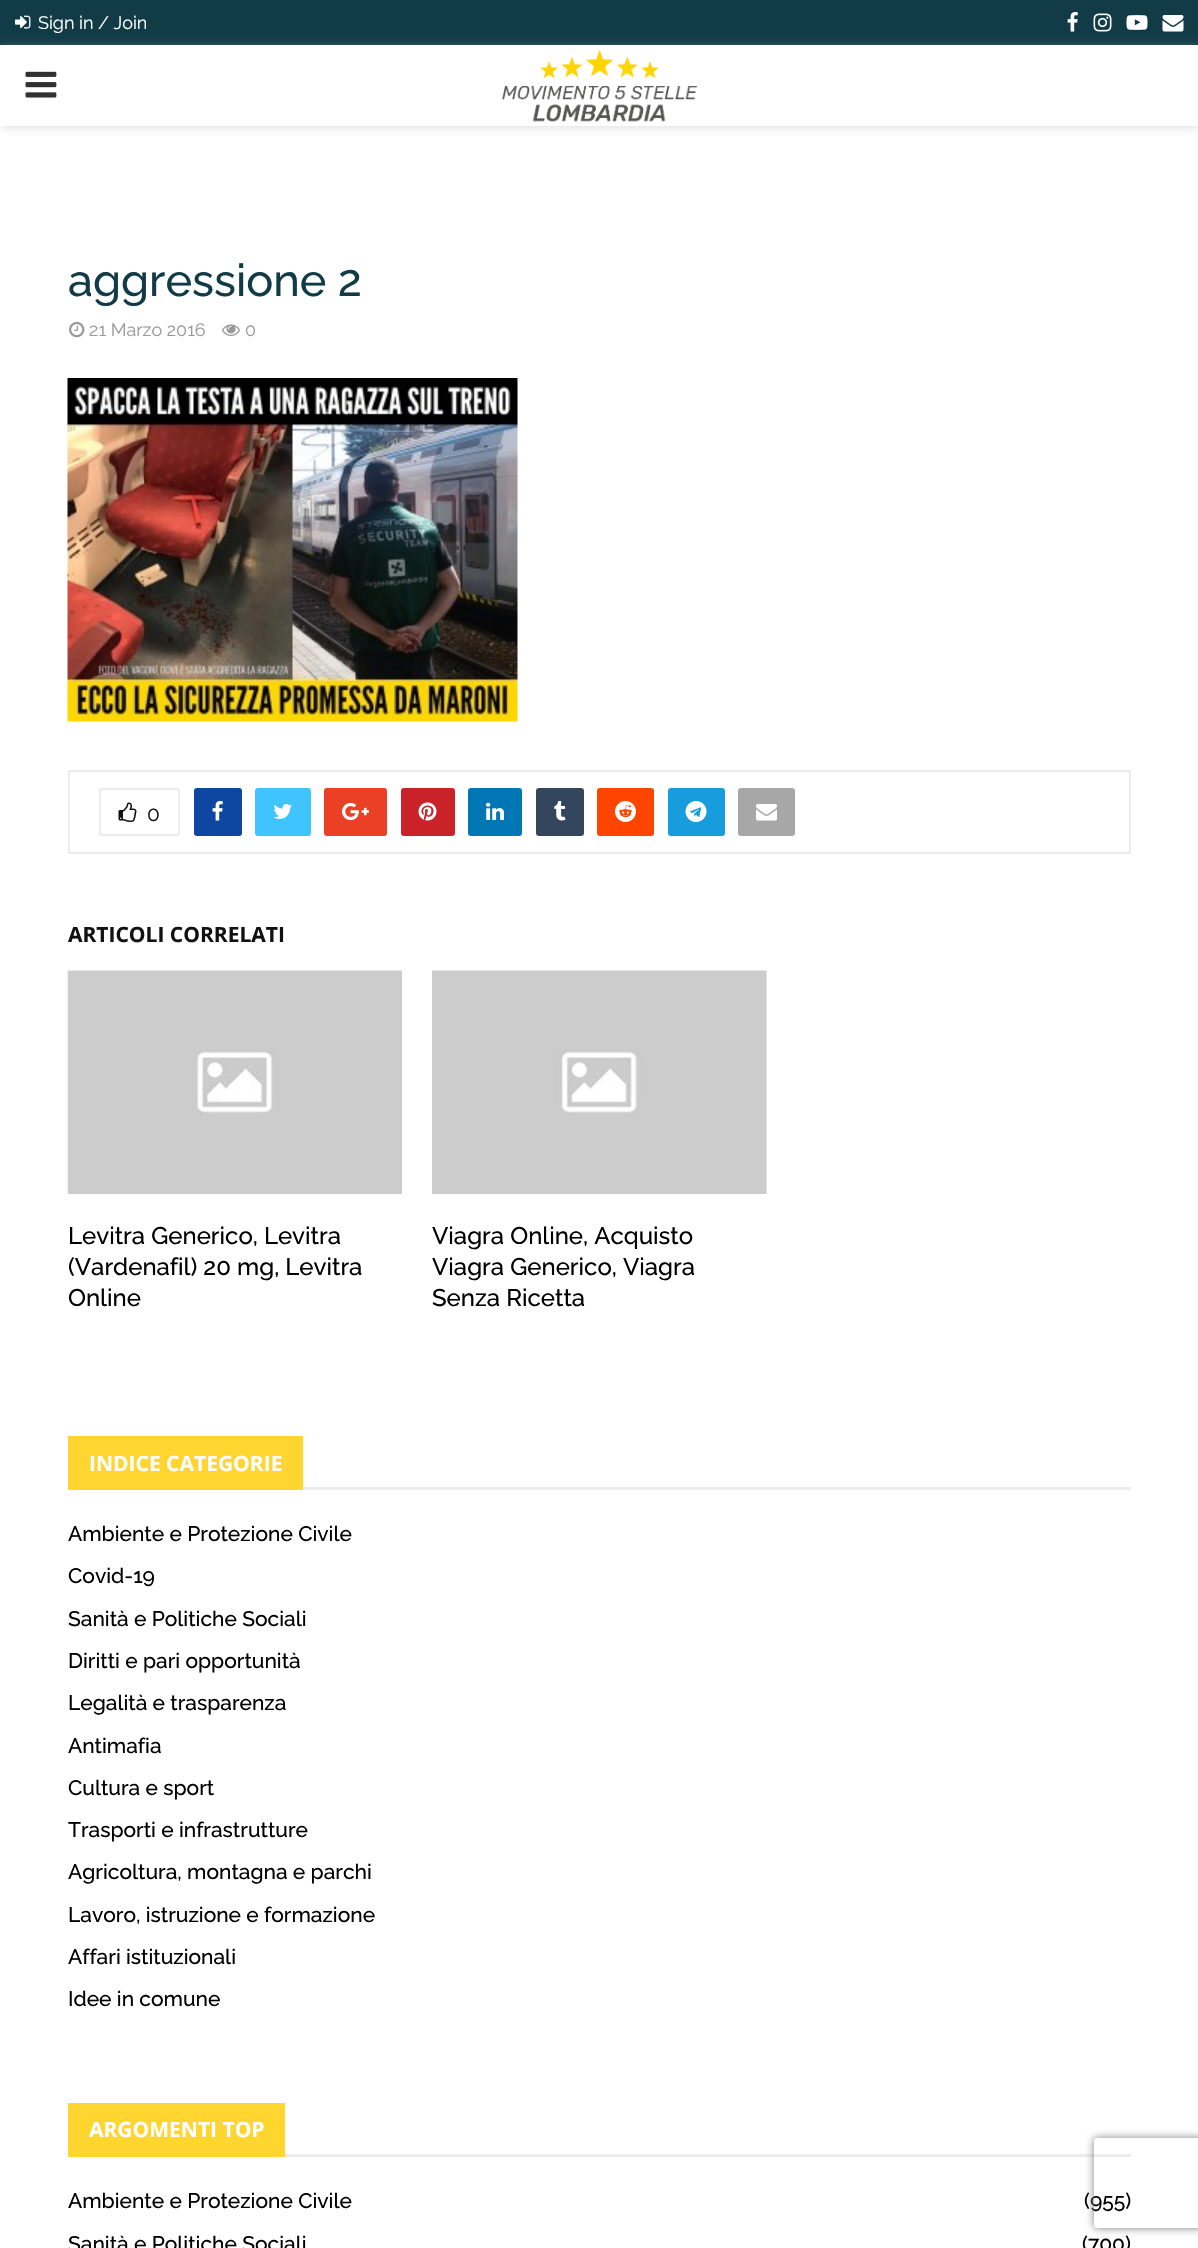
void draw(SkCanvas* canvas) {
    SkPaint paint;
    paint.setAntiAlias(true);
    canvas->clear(0xFFFFFFFF);
    paint.setColor(0xFF123B48);
    canvas->drawRect(SkRect::MakeXYWH(0, 0, 1198, 45), paint);
    canvas->drawImageRect(SkImages::DeferredFromEncodedData(SkData::MakeFromFileName("img1.png")), SkRect::MakeXYWH(15, 15, 16, 14), SkSamplingOptions());
    SkFont font1(fontMgr->matchFamilyStyle("Raleway", SkFontStyle::Normal()), 18);
    font1.setSubpixel(true);
    paint.setColor(0xFFFFFFFF);
    canvas->drawString("Sign in / Join", 38, 29, font1, paint);
    canvas->drawImageRect(SkImages::DeferredFromEncodedData(SkData::MakeFromFileName("img2.png")), SkRect::MakeXYWH(1067, 12, 11, 20), SkSamplingOptions());
    canvas->drawImageRect(SkImages::DeferredFromEncodedData(SkData::MakeFromFileName("img3.png")), SkRect::MakeXYWH(1093, 13, 19, 19), SkSamplingOptions());
    canvas->drawImageRect(SkImages::DeferredFromEncodedData(SkData::MakeFromFileName("img4.png")), SkRect::MakeXYWH(1126, 15, 22, 15), SkSamplingOptions());
    canvas->drawImageRect(SkImages::DeferredFromEncodedData(SkData::MakeFromFileName("img5.png")), SkRect::MakeXYWH(1162, 15, 22, 17), SkSamplingOptions());
    canvas->save();
    canvas->clipPath(SkPathBuilder(SkPathFillType::kEvenOdd).moveTo(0, 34).lineTo(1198, 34).lineTo(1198, 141).lineTo(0, 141).close().moveTo(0, 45).lineTo(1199, 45).lineTo(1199, 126).lineTo(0, 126).close().detach(), true);
    paint.setColor(0x75BEBEBE);
    paint.setMaskFilter(SkMaskFilter::MakeBlur(kNormal_SkBlurStyle, 4));
    canvas->drawRect(SkRect::MakeXYWH(0, 47, 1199, 81), paint);
    paint.setMaskFilter(nullptr);
    canvas->restore();
    canvas->drawImageRect(SkImages::DeferredFromEncodedData(SkData::MakeFromFileName("img6.png")), SkRect::MakeXYWH(25, 71, 32, 27), SkSamplingOptions());
    canvas->drawImageRect(SkImages::DeferredFromEncodedData(SkData::MakeFromFileName("img7.png")), SkRect::MakeXYWH(502, 49, 196, 73), SkSamplingOptions());
    SkFont font2(fontMgr->matchFamilyStyle("Raleway", SkFontStyle(500, SkFontStyle::kNormal_Width, SkFontStyle::kUpright_Slant)), 45);
    font2.setSubpixel(true);
    paint.setColor(0xFF123B48);
    canvas->drawString("aggressione 2", 68, 296, font2, paint);
    canvas->drawImageRect(SkImages::DeferredFromEncodedData(SkData::MakeFromFileName("img8.png")), SkRect::MakeXYWH(69, 321, 16, 17), SkSamplingOptions());
    paint.setColor(0xFF999999);
    canvas->drawString("21 Marzo 2016", 89, 336, font1, paint);
    canvas->drawImageRect(SkImages::DeferredFromEncodedData(SkData::MakeFromFileName("img9.png")), SkRect::MakeXYWH(222, 324, 18, 12), SkSamplingOptions());
    canvas->drawString("0", 245, 336, font1, paint);
    canvas->drawImageRect(SkImages::DeferredFromEncodedData(SkData::MakeFromFileName("img10.png")), SkRect::MakeXYWH(67, 378, 451, 344), SkSamplingOptions());
    paint.setStyle(SkPaint::kStroke_Style);
    paint.setStrokeWidth(2);
    paint.setColor(0xFFECECEC);
    canvas->drawRect(SkRect::MakeXYWH(69, 771, 1061, 82), paint);
    canvas->drawRoundRect(SkRect::MakeXYWH(100, 789, 79, 46), 2, 2, paint);
    canvas->drawImageRect(SkImages::DeferredFromEncodedData(SkData::MakeFromFileName("img11.png")), SkRect::MakeXYWH(118, 802, 19, 20), SkSamplingOptions());
    SkFont font3(fontMgr->matchFamilyStyle("Raleway", SkFontStyle::Normal()), 21);
    font3.setSubpixel(true);
    paint.setStyle(SkPaint::kFill_Style);
    paint.setColor(0xFF111111);
    canvas->drawString("0", 147, 821, font3, paint);
    paint.setColor(0xFF0D47A1);
    canvas->drawRoundRect(SkRect::MakeXYWH(194, 788, 48, 48), 3, 3, paint);
    canvas->drawImageRect(SkImages::DeferredFromEncodedData(SkData::MakeFromFileName("img12.png")), SkRect::MakeXYWH(212, 801, 11, 20), SkSamplingOptions());
    paint.setColor(0xFF40C4FF);
    canvas->drawRoundRect(SkRect::MakeXYWH(255, 788, 56, 48), 3, 3, paint);
    canvas->drawImageRect(SkImages::DeferredFromEncodedData(SkData::MakeFromFileName("img13.png")), SkRect::MakeXYWH(273, 804, 19, 15), SkSamplingOptions());
    paint.setColor(0xFFEB4026);
    canvas->drawRoundRect(SkRect::MakeXYWH(324, 788, 63, 48), 3, 3, paint);
    canvas->drawImageRect(SkImages::DeferredFromEncodedData(SkData::MakeFromFileName("img14.png")), SkRect::MakeXYWH(342, 802, 27, 19), SkSamplingOptions());
    paint.setColor(0xFFC92228);
    canvas->drawRoundRect(SkRect::MakeXYWH(401, 788, 54, 48), 3, 3, paint);
    canvas->drawImageRect(SkImages::DeferredFromEncodedData(SkData::MakeFromFileName("img15.png")), SkRect::MakeXYWH(418, 802, 19, 19), SkSamplingOptions());
    paint.setColor(0xFF0077B5);
    canvas->drawRoundRect(SkRect::MakeXYWH(468, 788, 54, 48), 3, 3, paint);
    canvas->drawImageRect(SkImages::DeferredFromEncodedData(SkData::MakeFromFileName("img16.png")), SkRect::MakeXYWH(486, 802, 18, 18), SkSamplingOptions());
    paint.setColor(0xFF34465D);
    canvas->drawRoundRect(SkRect::MakeXYWH(536, 788, 48, 48), 3, 3, paint);
    canvas->drawImageRect(SkImages::DeferredFromEncodedData(SkData::MakeFromFileName("img17.png")), SkRect::MakeXYWH(554, 801, 12, 20), SkSamplingOptions());
    paint.setColor(0xFFFF4500);
    canvas->drawRoundRect(SkRect::MakeXYWH(597, 788, 57, 48), 3, 3, paint);
    canvas->drawImageRect(SkImages::DeferredFromEncodedData(SkData::MakeFromFileName("img18.png")), SkRect::MakeXYWH(615, 801, 21, 21), SkSamplingOptions());
    paint.setColor(0xFF179CDE);
    canvas->drawRoundRect(SkRect::MakeXYWH(668, 788, 57, 48), 3, 3, paint);
    canvas->drawImageRect(SkImages::DeferredFromEncodedData(SkData::MakeFromFileName("img19.png")), SkRect::MakeXYWH(685, 801, 22, 21), SkSamplingOptions());
    paint.setColor(0xFFA7A7A7);
    canvas->drawRoundRect(SkRect::MakeXYWH(738, 788, 57, 48), 3, 3, paint);
    canvas->drawImageRect(SkImages::DeferredFromEncodedData(SkData::MakeFromFileName("img20.png")), SkRect::MakeXYWH(756, 804, 21, 17), SkSamplingOptions());
    SkFont font4(fontMgr->matchFamilyStyle("Open Sans", SkFontStyle::Bold()), 21);
    font4.setSubpixel(true);
    paint.setColor(0xFF111111);
    canvas->drawString("ARTICOLI CORRELATI", 68, 942, font4, paint);
    canvas->drawImageRect(SkImages::DeferredFromEncodedData(SkData::MakeFromFileName("img21.png")), SkRect::MakeXYWH(67, 970, 335, 224), SkSamplingOptions());
    SkFont font5(fontMgr->matchFamilyStyle("Raleway", SkFontStyle(500, SkFontStyle::kNormal_Width, SkFontStyle::kUpright_Slant)), 24);
    font5.setSubpixel(true);
    paint.setColor(0xFF000000);
    canvas->drawString("Levitra Generico, Levitra", 68, 1244, font5, paint);
    canvas->drawString("(Vardenafil) 20 mg, Levitra", 68, 1275, font5, paint);
    canvas->drawString("Online", 68, 1306, font5, paint);
    paint.setColor(0xFFF5F5F5);
    canvas->drawRect(SkRect::MakeXYWH(766, 971, 1, 223), paint);
    canvas->drawImageRect(SkImages::DeferredFromEncodedData(SkData::MakeFromFileName("img22.png")), SkRect::MakeXYWH(432, 970, 335, 224), SkSamplingOptions());
    paint.setColor(0xFF000000);
    canvas->drawString("Viagra Online, Acquisto", 432, 1244, font5, paint);
    canvas->drawString("Viagra Generico, Viagra", 432, 1275, font5, paint);
    canvas->drawString("Senza Ricetta", 432, 1306, font5, paint);
    paint.setColor(0xFFECECEC);
    canvas->drawRect(SkRect::MakeXYWH(303, 1487, 828, 3), paint);
    paint.setColor(0xFFFFD530);
    canvas->drawRect(SkRect::MakeXYWH(68, 1436, 235, 54), paint);
    paint.setColor(0xFFFFFFFF);
    canvas->drawString("INDICE CATEGORIE", 89, 1471, font4, paint);
    SkFont font6(fontMgr->matchFamilyStyle("Raleway", SkFontStyle(500, SkFontStyle::kNormal_Width, SkFontStyle::kUpright_Slant)), 21);
    font6.setSubpixel(true);
    paint.setColor(0xFF000000);
    canvas->drawString("Ambiente e Protezione Civile", 68, 1541, font6, paint);
    canvas->drawString("Covid-19", 68, 1583, font6, paint);
    canvas->drawString("Sanità e Politiche Sociali", 68, 1626, font6, paint);
    canvas->drawString("Diritti e pari opportunità", 68, 1668, font6, paint);
    canvas->drawString("Legalità e trasparenza", 68, 1710, font6, paint);
    canvas->drawString("Antimafia", 68, 1753, font6, paint);
    canvas->drawString("Cultura e sport", 68, 1795, font6, paint);
    canvas->drawString("Trasporti e infrastrutture", 68, 1837, font6, paint);
    canvas->drawString("Agricoltura, montagna e parchi", 68, 1879, font6, paint);
    canvas->drawString("Lavoro, istruzione e formazione", 68, 1922, font6, paint);
    canvas->drawString("Affari istituzionali", 68, 1964, font6, paint);
    canvas->drawString("Idee in comune", 68, 2006, font6, paint);
    paint.setColor(0xFFECECEC);
    canvas->drawRect(SkRect::MakeXYWH(285, 2154, 846, 3), paint);
    paint.setColor(0xFFFFD530);
    canvas->drawRect(SkRect::MakeXYWH(68, 2103, 217, 54), paint);
    paint.setColor(0xFFFFFFFF);
    canvas->drawString("ARGOMENTI TOP", 89, 2137, font4, paint);
    paint.setColor(0xFF000000);
    canvas->drawString("Ambiente e Protezione Civile", 68, 2208, font6, paint);
    canvas->drawString("(955)", 1084, 2208, font6, paint);
    canvas->drawString("Sanità e Politiche Sociali", 68, 2251, font6, paint);
    canvas->drawString("(700)", 1082, 2251, font6, paint);
    canvas->save();
    canvas->clipPath(SkPathBuilder(SkPathFillType::kEvenOdd).moveTo(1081, 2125).lineTo(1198, 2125).lineTo(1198, 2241).lineTo(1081, 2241).close().moveTo(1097, 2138).lineTo(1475, 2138).cubicTo(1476.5f, 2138, 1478, 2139.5f, 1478, 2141).lineTo(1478, 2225).cubicTo(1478, 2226.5f, 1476.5f, 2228, 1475, 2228).lineTo(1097, 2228).cubicTo(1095.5f, 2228, 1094, 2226.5f, 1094, 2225).lineTo(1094, 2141).cubicTo(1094, 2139.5f, 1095.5f, 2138, 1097, 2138).close().detach(), true);
    paint.setColor(0xFF808080);
    paint.setMaskFilter(SkMaskFilter::MakeBlur(kNormal_SkBlurStyle, 4));
    canvas->drawRoundRect(SkRect::MakeXYWH(1094, 2138, 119, 90), 3, 3, paint);
    paint.setMaskFilter(nullptr);
    canvas->restore();
}
